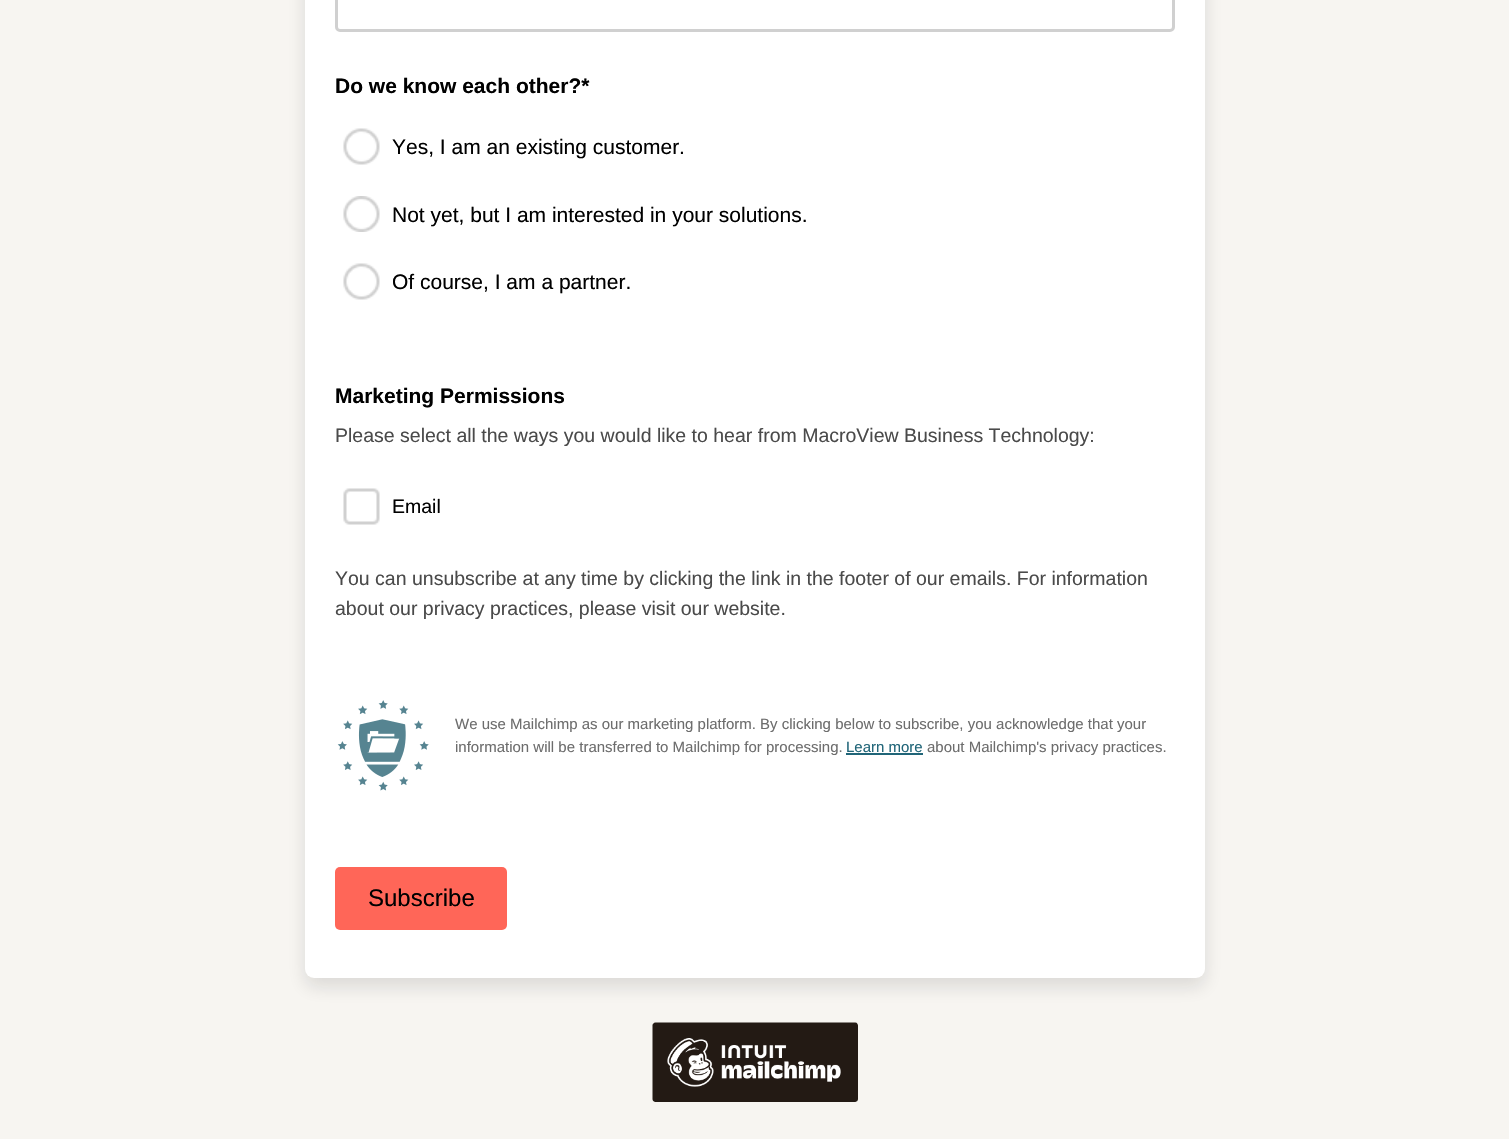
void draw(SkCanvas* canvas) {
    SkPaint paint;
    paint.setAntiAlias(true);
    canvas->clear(0xFFF7F5F1);
    paint.setColor(0x1F0D1216);
    paint.setMaskFilter(SkMaskFilter::MakeBlur(kNormal_SkBlurStyle, 9));
    canvas->drawRoundRect(SkRect::MakeXYWH(305, -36, 900, 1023), 9, 9, paint);
    paint.setMaskFilter(nullptr);
    paint.setColor(0xFFFFFFFF);
    canvas->drawRoundRect(SkRect::MakeXYWH(305, -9, 900, 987), 9, 9, paint);
    paint.setStyle(SkPaint::kStroke_Style);
    paint.setStrokeWidth(3);
    paint.setColor(0xFFD0D0D0);
    canvas->drawRoundRect(SkRect::MakeXYWH(336.5f, -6.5f, 837, 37), 3.5f, 3.5f, paint);
    SkFont font1(fontMgr->matchFamilyStyle("Liberation Sans", SkFontStyle::Bold()), 21);
    font1.setSubpixel(true);
    paint.setStyle(SkPaint::kFill_Style);
    paint.setColor(0xFF000000);
    canvas->drawString("Do we know each other?*", 335, 93, font1, paint);
    canvas->drawImageRect(SkImages::DeferredFromEncodedData(SkData::MakeFromFileName("img1.png")), SkRect::MakeXYWH(343, 128, 37, 37), SkSamplingOptions());
    SkFont font2(fontMgr->matchFamilyStyle("Liberation Sans", SkFontStyle::Normal()), 21);
    font2.setSubpixel(true);
    canvas->drawString("Yes, I am an existing customer.", 392, 154, font2, paint);
    canvas->drawImageRect(SkImages::DeferredFromEncodedData(SkData::MakeFromFileName("img2.png")), SkRect::MakeXYWH(343, 196, 37, 36), SkSamplingOptions());
    canvas->drawString("Not yet, but I am interested in your solutions.", 392, 222, font2, paint);
    canvas->drawImageRect(SkImages::DeferredFromEncodedData(SkData::MakeFromFileName("img1.png")), SkRect::MakeXYWH(343, 263, 37, 37), SkSamplingOptions());
    canvas->drawString("Of course, I am a partner.", 392, 289, font2, paint);
    canvas->drawString("Marketing Permissions", 335, 403, font1, paint);
    SkFont font3(fontMgr->matchFamilyStyle("Liberation Sans", SkFontStyle::Normal()), 19.5f);
    font3.setSubpixel(true);
    paint.setColor(0xFF4A4A4A);
    canvas->drawString("Please select all the ways you would like to hear from MacroView Business Technology:", 335, 442, font3, paint);
    canvas->drawImageRect(SkImages::DeferredFromEncodedData(SkData::MakeFromFileName("img3.png")), SkRect::MakeXYWH(343, 488, 37, 37), SkSamplingOptions());
    paint.setColor(0xFF000000);
    canvas->drawString("Email", 392, 513, font3, paint);
    paint.setColor(0xFF4A4A4A);
    canvas->drawString("You can unsubscribe at any time by clicking the link in the footer of our emails. For information", 335, 585, font3, paint);
    canvas->drawString("about our privacy practices, please visit our website.", 335, 615, font3, paint);
    canvas->drawImageRect(SkImages::DeferredFromEncodedData(SkData::MakeFromFileName("img4.png")), SkRect::MakeXYWH(337, 700, 92, 91), SkSamplingOptions());
    SkFont font4(fontMgr->matchFamilyStyle("Liberation Sans", SkFontStyle::Normal()), 15);
    font4.setSubpixel(true);
    paint.setColor(0xFF6D6D6D);
    canvas->drawString("We use Mailchimp as our marketing platform. By clicking below to subscribe, you acknowledge that your", 455, 729, font4, paint);
    canvas->drawString("information will be transferred to Mailchimp for processing.", 455, 752, font4, paint);
    paint.setColor(0xFF206578);
    canvas->drawString("Learn more", 846, 752, font4, paint);
    canvas->drawRect(SkRect::MakeXYWH(846, 753, 77, 2), paint);
    paint.setColor(0xFF6D6D6D);
    canvas->drawString("about Mailchimp's privacy practices.", 927, 752, font4, paint);
    paint.setColor(0xFFFF6658);
    canvas->drawRoundRect(SkRect::MakeXYWH(335, 867, 172, 63), 5, 5, paint);
    SkFont font5(fontMgr->matchFamilyStyle("Liberation Sans", SkFontStyle::Normal()), 24);
    font5.setSubpixel(true);
    paint.setColor(0xFF000000);
    canvas->drawString("Subscribe", 368, 906, font5, paint);
    canvas->drawImageRect(SkImages::DeferredFromEncodedData(SkData::MakeFromFileName("img5.png")), SkRect::MakeXYWH(652, 1022, 206, 80), SkSamplingOptions());
}
